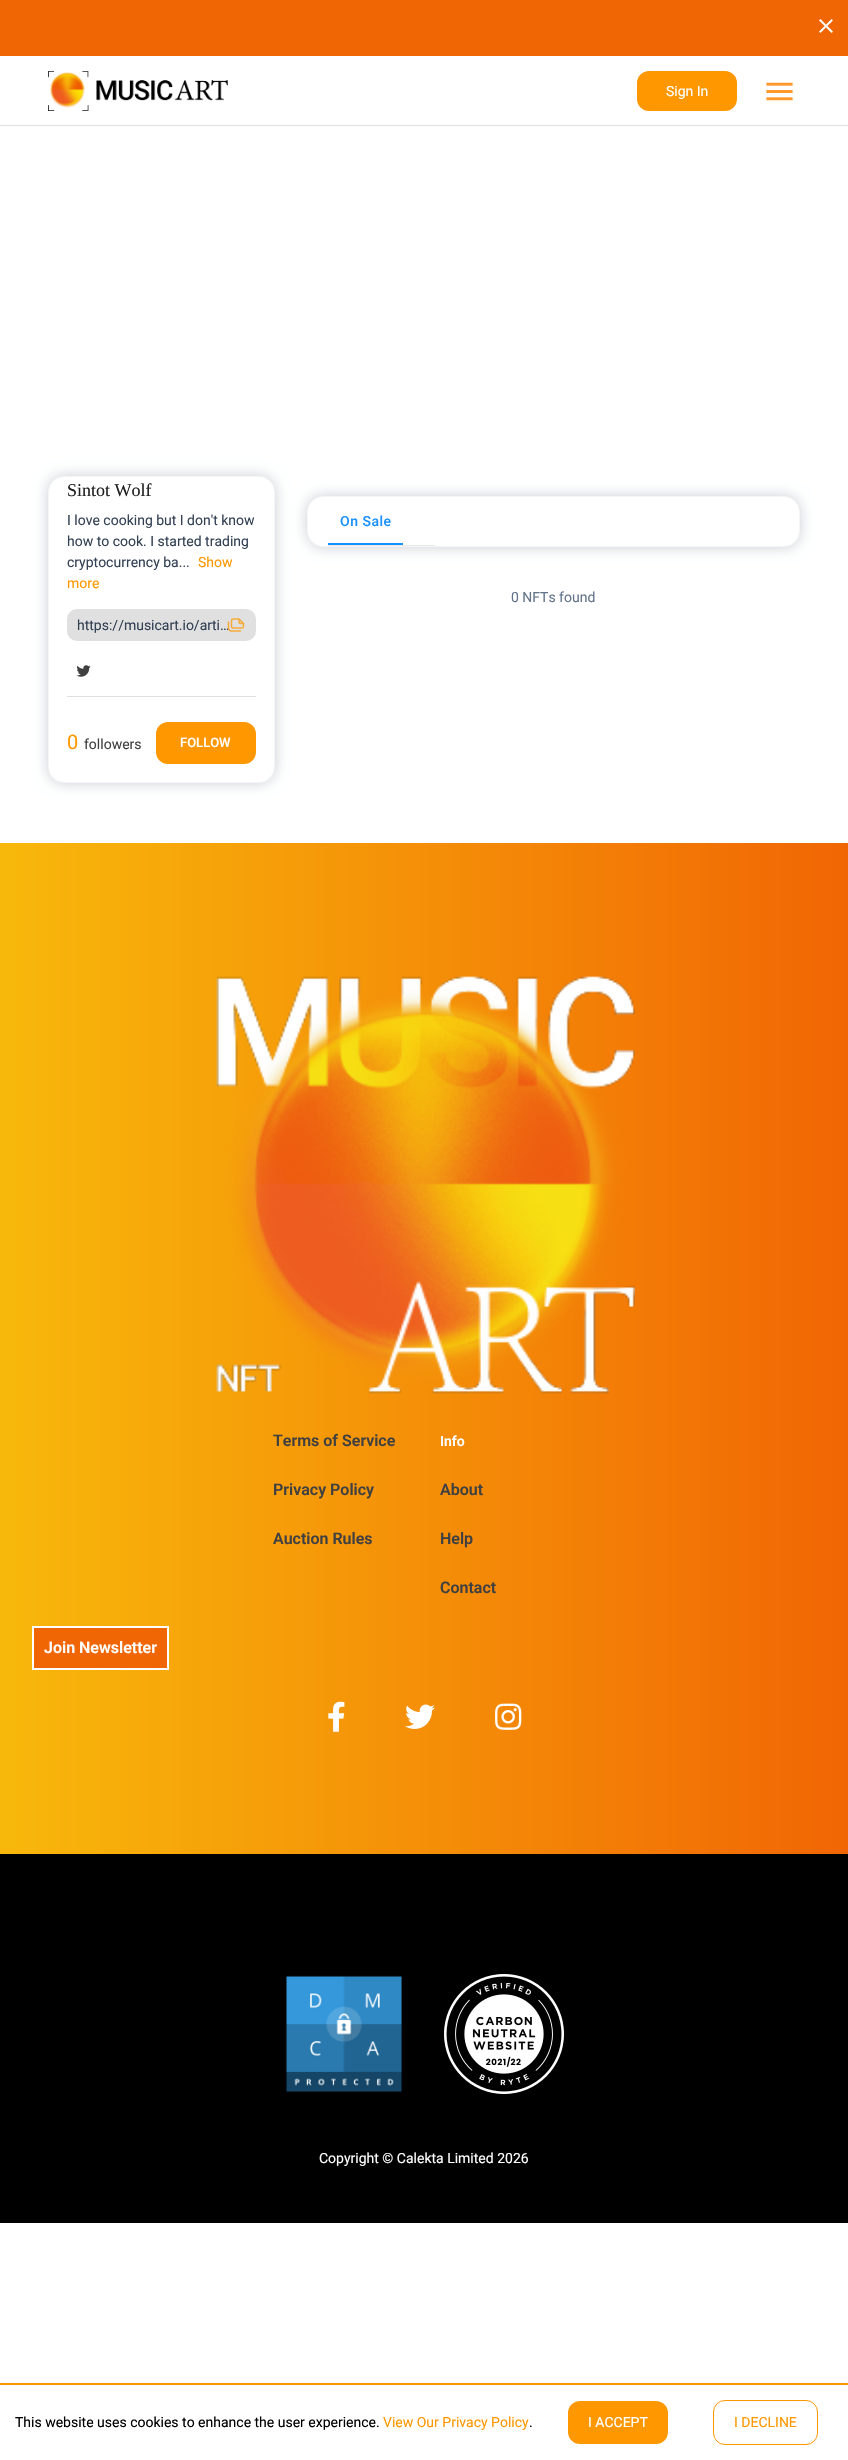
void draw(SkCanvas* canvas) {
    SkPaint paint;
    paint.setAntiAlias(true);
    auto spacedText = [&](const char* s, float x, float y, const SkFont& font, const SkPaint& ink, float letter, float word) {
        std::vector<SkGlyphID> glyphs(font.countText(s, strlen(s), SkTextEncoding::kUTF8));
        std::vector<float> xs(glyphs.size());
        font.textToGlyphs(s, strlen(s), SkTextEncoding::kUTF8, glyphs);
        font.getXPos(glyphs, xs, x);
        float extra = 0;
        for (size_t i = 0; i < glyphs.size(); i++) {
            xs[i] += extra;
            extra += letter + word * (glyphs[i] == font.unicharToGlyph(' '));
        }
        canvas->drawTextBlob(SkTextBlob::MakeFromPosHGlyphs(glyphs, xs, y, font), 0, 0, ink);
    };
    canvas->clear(0xFFFFFFFF);
    paint.setColor(0xFFF16604);
    canvas->drawRect(SkRect::MakeXYWH(0, 0, 848, 56), paint);
    canvas->drawImageRect(SkImages::DeferredFromEncodedData(SkData::MakeFromFileName("img1.png")), SkRect::MakeXYWH(819, 19, 14, 14), SkSamplingOptions());
    paint.setColor(0xFFE0E0E0);
    canvas->drawRect(SkRect::MakeXYWH(0, 125, 848, 1), paint);
    canvas->drawImageRect(SkImages::DeferredFromEncodedData(SkData::MakeFromFileName("img2.png")), SkRect::MakeXYWH(48, 71, 180, 40), SkSamplingOptions());
    paint.setColor(0xFFFF9700);
    canvas->drawRoundRect(SkRect::MakeXYWH(637, 71, 100, 40), 12, 12, paint);
    SkFont font1(fontMgr->matchFamilyStyle("Roboto", SkFontStyle::Normal()), 14);
    font1.setSubpixel(true);
    paint.setColor(0xFFFFFFFF);
    canvas->drawString("Sign In", 666, 96, font1, paint);
    canvas->drawImageRect(SkImages::DeferredFromEncodedData(SkData::MakeFromFileName("img3.png")), SkRect::MakeXYWH(766, 82, 27, 19), SkSamplingOptions());
    paint.setColor(0x33000B28);
    paint.setMaskFilter(SkMaskFilter::MakeBlur(kNormal_SkBlurStyle, 7.5f));
    canvas->drawRoundRect(SkRect::MakeXYWH(48, 476, 227, 307), 16, 16, paint);
    paint.setMaskFilter(nullptr);
    paint.setColor(0xFFFFFFFF);
    canvas->drawRoundRect(SkRect::MakeXYWH(48.5f, 476.5f, 226, 306), 15.5f, 15.5f, paint);
    paint.setStyle(SkPaint::kStroke_Style);
    paint.setStrokeWidth(1);
    paint.setColor(0xFFF4F5F6);
    canvas->drawRoundRect(SkRect::MakeXYWH(48.5f, 476.5f, 226, 306), 15.5f, 15.5f, paint);
    SkFont font2(fontMgr->matchFamilyStyle("Liberation Serif", SkFontStyle::Normal()), 18);
    font2.setSubpixel(true);
    paint.setStyle(SkPaint::kFill_Style);
    paint.setColor(0xFF202020);
    canvas->drawString("Sintot Wolf", 67, 496, font2, paint);
    paint.setColor(0xFF334155);
    canvas->drawString("I love cooking but I don't know", 67, 525, font1, paint);
    canvas->drawString("how to cook. I started trading", 67, 546, font1, paint);
    canvas->drawString("cryptocurrency ba...", 67, 567, font1, paint);
    paint.setColor(0xFFFF9700);
    canvas->drawString("Show", 198, 567, font1, paint);
    canvas->drawString("more", 67, 588, font1, paint);
    paint.setColor(0xFFE0E0E0);
    canvas->drawRoundRect(SkRect::MakeXYWH(67, 609, 189, 32), 10, 10, paint);
    paint.setColor(0xFF334155);
    canvas->drawString("https://musicart.io/arti…", 77, 630, font1, paint);
    canvas->drawImageRect(SkImages::DeferredFromEncodedData(SkData::MakeFromFileName("img4.png")), SkRect::MakeXYWH(227, 618, 18, 14), SkSamplingOptions());
    canvas->drawImageRect(SkImages::DeferredFromEncodedData(SkData::MakeFromFileName("img5.png")), SkRect::MakeXYWH(76, 665, 15, 12), SkSamplingOptions());
    paint.setColor(0xFFE0E0E0);
    canvas->drawRect(SkRect::MakeXYWH(67, 696, 189, 1), paint);
    SkFont font3(fontMgr->matchFamilyStyle("Roboto", SkFontStyle::Normal()), 20);
    font3.setSubpixel(true);
    paint.setColor(0xFFFF9700);
    canvas->drawString("0", 67, 749, font3, paint);
    paint.setColor(0xFF404040);
    canvas->drawString("followers", 84, 749, font1, paint);
    paint.setColor(0xFFFF9700);
    canvas->drawRoundRect(SkRect::MakeXYWH(156, 722, 100, 42), 12, 12, paint);
    SkFont font4(fontMgr->matchFamilyStyle("Roboto", SkFontStyle(500, SkFontStyle::kNormal_Width, SkFontStyle::kUpright_Slant)), 13);
    font4.setSubpixel(true);
    paint.setColor(0xFFFFFFFF);
    canvas->drawString("FOLLOW", 180, 747, font4, paint);
    paint.setColor(0x33000B28);
    paint.setMaskFilter(SkMaskFilter::MakeBlur(kNormal_SkBlurStyle, 7.5f));
    canvas->drawRoundRect(SkRect::MakeXYWH(307, 496, 493, 51), 16, 16, paint);
    paint.setMaskFilter(nullptr);
    paint.setColor(0xFFFFFFFF);
    canvas->drawRoundRect(SkRect::MakeXYWH(307.5f, 496.5f, 492, 50), 15.5f, 15.5f, paint);
    paint.setStyle(SkPaint::kStroke_Style);
    paint.setColor(0xFFF4F5F6);
    canvas->drawRoundRect(SkRect::MakeXYWH(307.5f, 496.5f, 492, 50), 15.5f, 15.5f, paint);
    paint.setStyle(SkPaint::kFill_Style);
    paint.setColor(0xFFE8E8E8);
    canvas->drawRect(SkRect::MakeXYWH(328, 545, 107, 1), paint);
    SkFont font5(fontMgr->matchFamilyStyle("Roboto", SkFontStyle(500, SkFontStyle::kNormal_Width, SkFontStyle::kUpright_Slant)), 14);
    font5.setSubpixel(true);
    paint.setColor(0xFF1890FF);
    spacedText("On Sale", 340, 526, font5, paint, 0.5f, 0);
    canvas->drawRect(SkRect::MakeXYWH(328, 543, 75, 2), paint);
    paint.setColor(0xFF64748B);
    canvas->drawString("0 NFTs found", 511, 602, font1, paint);
    {
        const SkColor colors[] = {0xFFF8B80B, 0xFFF16604};
        const float stops[] = {0, 1};
        const SkPoint ends[] = {{0, 1349}, {848, 1349}};
        paint.setShader(SkGradientShader::MakeLinear(ends, colors, stops, 2, SkTileMode::kClamp));
        paint.setAlpha(255);
    }
    canvas->drawRect(SkRect::MakeXYWH(0, 843, 848, 1011), paint);
    canvas->drawImageRect(SkImages::DeferredFromEncodedData(SkData::MakeFromFileName("img6.png")), SkRect::MakeXYWH(216, 976, 419, 418), SkSamplingOptions());
    SkFont font6(fontMgr->matchFamilyStyle("Roboto", SkFontStyle(600, SkFontStyle::kNormal_Width, SkFontStyle::kUpright_Slant)), 16);
    font6.setSubpixel(true);
    paint.setShader(nullptr);
    paint.setColor(0xFF404040);
    canvas->drawString("Terms of Service", 273, 1446, font6, paint);
    canvas->drawString("Privacy Policy", 273, 1495, font6, paint);
    canvas->drawString("Auction Rules", 273, 1544, font6, paint);
    SkFont font7(fontMgr->matchFamilyStyle("Roboto", SkFontStyle(600, SkFontStyle::kNormal_Width, SkFontStyle::kUpright_Slant)), 14);
    font7.setSubpixel(true);
    paint.setColor(0xFFFFFFFF);
    canvas->drawString("Info", 440, 1446, font7, paint);
    paint.setColor(0xFF404040);
    canvas->drawString("About", 440, 1495, font6, paint);
    canvas->drawString("Help", 440, 1544, font6, paint);
    canvas->drawString("Contact", 440, 1593, font6, paint);
    paint.setColor(0xFFF16604);
    canvas->drawRect(SkRect::MakeXYWH(33, 1627, 135, 42), paint);
    paint.setStyle(SkPaint::kStroke_Style);
    paint.setStrokeWidth(2);
    paint.setColor(0xFFFFFFFF);
    canvas->drawRect(SkRect::MakeXYWH(33, 1627, 135, 42), paint);
    paint.setStyle(SkPaint::kFill_Style);
    canvas->drawString("Join Newsletter", 44, 1653, font6, paint);
    canvas->drawImageRect(SkImages::DeferredFromEncodedData(SkData::MakeFromFileName("img7.png")), SkRect::MakeXYWH(328, 1701, 17, 31), SkSamplingOptions());
    canvas->drawImageRect(SkImages::DeferredFromEncodedData(SkData::MakeFromFileName("img8.png")), SkRect::MakeXYWH(405, 1704, 30, 25), SkSamplingOptions());
    canvas->drawImageRect(SkImages::DeferredFromEncodedData(SkData::MakeFromFileName("img9.png")), SkRect::MakeXYWH(495, 1703, 27, 27), SkSamplingOptions());
    paint.setColor(0xFF000000);
    canvas->drawRect(SkRect::MakeXYWH(0, 1854, 848, 369), paint);
    canvas->drawImageRect(SkImages::DeferredFromEncodedData(SkData::MakeFromFileName("img10.png")), SkRect::MakeXYWH(285, 1975, 118, 117), SkSamplingOptions());
    canvas->drawImageRect(SkImages::DeferredFromEncodedData(SkData::MakeFromFileName("img11.png")), SkRect::MakeXYWH(444, 1974, 120, 120), SkSamplingOptions());
    paint.setColor(0xFFFFFFFF);
    canvas->drawString("Copyright © Calekta Limited 2026", 319, 2163, font1, paint);
    paint.setColor(0xFFFF9700);
    canvas->drawRect(SkRect::MakeXYWH(0, 2383, 848, 2), paint);
    paint.setColor(0xFF000000);
    canvas->drawString("This website uses cookies to enhance the user experience.", 15, 2427, font1, paint);
    paint.setColor(0xFFFF9700);
    canvas->drawString("View Our Privacy Policy", 383, 2427, font1, paint);
    paint.setColor(0xFF000000);
    canvas->drawString(".", 529, 2427, font1, paint);
    paint.setColor(0xFFFF9700);
    canvas->drawRoundRect(SkRect::MakeXYWH(568, 2401, 100, 43), 12, 12, paint);
    paint.setColor(0xFFFFFFFF);
    canvas->drawString("I ACCEPT", 588, 2427, font1, paint);
    paint.setStyle(SkPaint::kStroke_Style);
    paint.setStrokeWidth(1);
    paint.setColor(0xFFFF9700);
    canvas->drawRoundRect(SkRect::MakeXYWH(713.5f, 2400.5f, 104, 44), 11.5f, 11.5f, paint);
    paint.setStyle(SkPaint::kFill_Style);
    canvas->drawString("I DECLINE", 734, 2427, font1, paint);
}
